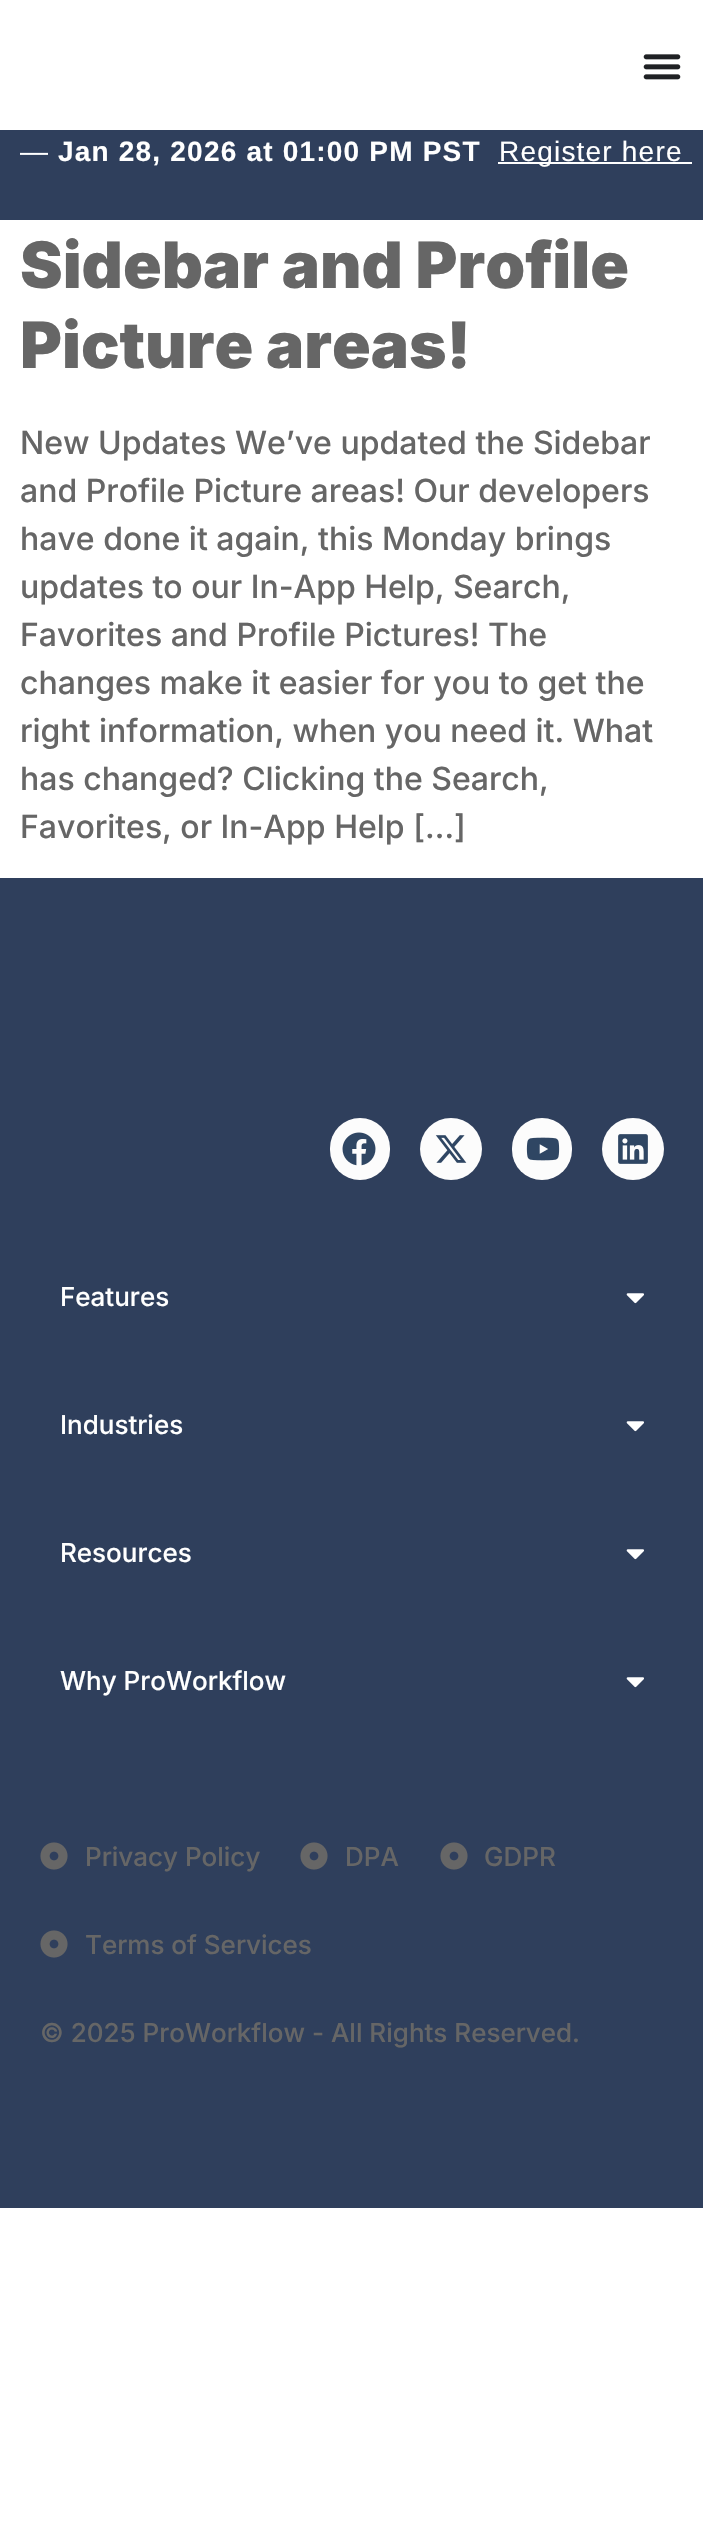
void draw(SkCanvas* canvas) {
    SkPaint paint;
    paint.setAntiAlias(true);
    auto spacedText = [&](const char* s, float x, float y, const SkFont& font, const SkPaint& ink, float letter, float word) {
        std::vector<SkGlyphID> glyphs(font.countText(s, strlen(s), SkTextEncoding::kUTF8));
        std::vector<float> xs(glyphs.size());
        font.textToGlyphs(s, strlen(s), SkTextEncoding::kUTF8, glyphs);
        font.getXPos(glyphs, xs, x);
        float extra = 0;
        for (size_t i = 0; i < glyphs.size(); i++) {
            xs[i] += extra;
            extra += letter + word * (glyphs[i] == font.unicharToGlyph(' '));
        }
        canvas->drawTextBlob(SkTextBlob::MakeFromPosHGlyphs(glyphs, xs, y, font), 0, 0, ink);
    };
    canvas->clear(0xFFFFFFFF);
    canvas->drawImageRect(SkImages::DeferredFromEncodedData(SkData::MakeFromFileName("img1.png")), SkRect::MakeXYWH(643, 54, 38, 26), SkSamplingOptions());
    paint.setColor(0xFF2F3F5C);
    canvas->drawRect(SkRect::MakeXYWH(0, 130, 703, 90), paint);
    SkFont font1(fontMgr->matchFamilyStyle("Liberation Sans", SkFontStyle::Normal()), 28);
    font1.setSubpixel(true);
    paint.setColor(0xFFFFFFFF);
    spacedText("—", 20, 161, font1, paint, 1.2f, 0);
    SkFont font2(fontMgr->matchFamilyStyle("Liberation Sans", SkFontStyle::Bold()), 28);
    font2.setSubpixel(true);
    spacedText("Jan 28, 2026 at 01:00 PM PST", 58, 161, font2, paint, 1.2f, 0);
    canvas->drawRect(SkRect::MakeXYWH(498, 162, 194, 2), paint);
    spacedText("Register here", 499, 161, font1, paint, 1.2f, 0);
    SkFont font3(fontMgr->matchFamilyStyle("Inter", SkFontStyle(900, SkFontStyle::kNormal_Width, SkFontStyle::kUpright_Slant)), 64);
    font3.setSubpixel(true);
    paint.setColor(0xFF666666);
    canvas->drawString("Sidebar and Profile", 20, 288, font3, paint);
    canvas->drawString("Picture areas!", 20, 368, font3, paint);
    SkFont font4(fontMgr->matchFamilyStyle("Inter", SkFontStyle(500, SkFontStyle::kNormal_Width, SkFontStyle::kUpright_Slant)), 32);
    font4.setSubpixel(true);
    canvas->drawString("New Updates We’ve updated the Sidebar", 20, 454, font4, paint);
    canvas->drawString("and Profile Picture areas! Our developers", 20, 502, font4, paint);
    canvas->drawString("have done it again, this Monday brings", 20, 550, font4, paint);
    canvas->drawString("updates to our In-App Help, Search,", 20, 598, font4, paint);
    canvas->drawString("Favorites and Profile Pictures! The", 20, 646, font4, paint);
    canvas->drawString("changes make it easier for you to get the", 20, 694, font4, paint);
    canvas->drawString("right information, when you need it. What", 20, 742, font4, paint);
    canvas->drawString("has changed? Clicking the Search,", 20, 790, font4, paint);
    canvas->drawString("Favorites, or In-App Help […]", 20, 838, font4, paint);
    paint.setColor(0xFF2F3F5C);
    canvas->drawRect(SkRect::MakeXYWH(0, 878, 703, 1330), paint);
    paint.setColor(0xFFFCFCFC);
    canvas->drawRoundRect(SkRect::MakeXYWH(330, 1118, 60, 62), 30, 30, paint);
    canvas->drawImageRect(SkImages::DeferredFromEncodedData(SkData::MakeFromFileName("img2.png")), SkRect::MakeXYWH(342, 1132, 34, 34), SkSamplingOptions());
    canvas->drawCircle(451, 1149, 31, paint);
    canvas->drawImageRect(SkImages::DeferredFromEncodedData(SkData::MakeFromFileName("img3.png")), SkRect::MakeXYWH(435, 1135, 32, 28), SkSamplingOptions());
    canvas->drawRoundRect(SkRect::MakeXYWH(512, 1118, 60, 62), 30, 30, paint);
    canvas->drawImageRect(SkImages::DeferredFromEncodedData(SkData::MakeFromFileName("img4.png")), SkRect::MakeXYWH(526, 1137, 34, 24), SkSamplingOptions());
    canvas->drawCircle(633, 1149, 31, paint);
    canvas->drawImageRect(SkImages::DeferredFromEncodedData(SkData::MakeFromFileName("img5.png")), SkRect::MakeXYWH(618, 1134, 30, 30), SkSamplingOptions());
    SkFont font5(fontMgr->matchFamilyStyle("Inter", SkFontStyle(500, SkFontStyle::kNormal_Width, SkFontStyle::kUpright_Slant)), 26);
    font5.setSubpixel(true);
    paint.setColor(0xFFFFFFFF);
    canvas->drawString("Features", 60, 1306, font5, paint);
    canvas->drawImageRect(SkImages::DeferredFromEncodedData(SkData::MakeFromFileName("img6.png")), SkRect::MakeXYWH(626, 1293, 18, 11), SkSamplingOptions());
    canvas->drawString("Industries", 60, 1434, font5, paint);
    canvas->drawImageRect(SkImages::DeferredFromEncodedData(SkData::MakeFromFileName("img6.png")), SkRect::MakeXYWH(626, 1421, 18, 11), SkSamplingOptions());
    canvas->drawString("Resources", 60, 1562, font5, paint);
    canvas->drawImageRect(SkImages::DeferredFromEncodedData(SkData::MakeFromFileName("img6.png")), SkRect::MakeXYWH(626, 1549, 18, 11), SkSamplingOptions());
    canvas->drawString("Why ProWorkflow", 60, 1690, font5, paint);
    canvas->drawImageRect(SkImages::DeferredFromEncodedData(SkData::MakeFromFileName("img6.png")), SkRect::MakeXYWH(626, 1677, 18, 11), SkSamplingOptions());
    canvas->drawImageRect(SkImages::DeferredFromEncodedData(SkData::MakeFromFileName("img7.png")), SkRect::MakeXYWH(40, 1842, 28, 28), SkSamplingOptions());
    paint.setColor(0xFF666666);
    canvas->drawString("Privacy Policy", 85, 1866, font5, paint);
    canvas->drawImageRect(SkImages::DeferredFromEncodedData(SkData::MakeFromFileName("img7.png")), SkRect::MakeXYWH(300, 1842, 28, 28), SkSamplingOptions());
    canvas->drawString("DPA", 345, 1866, font5, paint);
    canvas->drawImageRect(SkImages::DeferredFromEncodedData(SkData::MakeFromFileName("img7.png")), SkRect::MakeXYWH(440, 1842, 28, 28), SkSamplingOptions());
    canvas->drawString("GDPR", 484, 1866, font5, paint);
    canvas->drawImageRect(SkImages::DeferredFromEncodedData(SkData::MakeFromFileName("img7.png")), SkRect::MakeXYWH(40, 1930, 28, 28), SkSamplingOptions());
    canvas->drawString("Terms of Services", 85, 1954, font5, paint);
    canvas->drawString("© 2025 ProWorkflow - All Rights Reserved.", 40, 2042, font5, paint);
}
